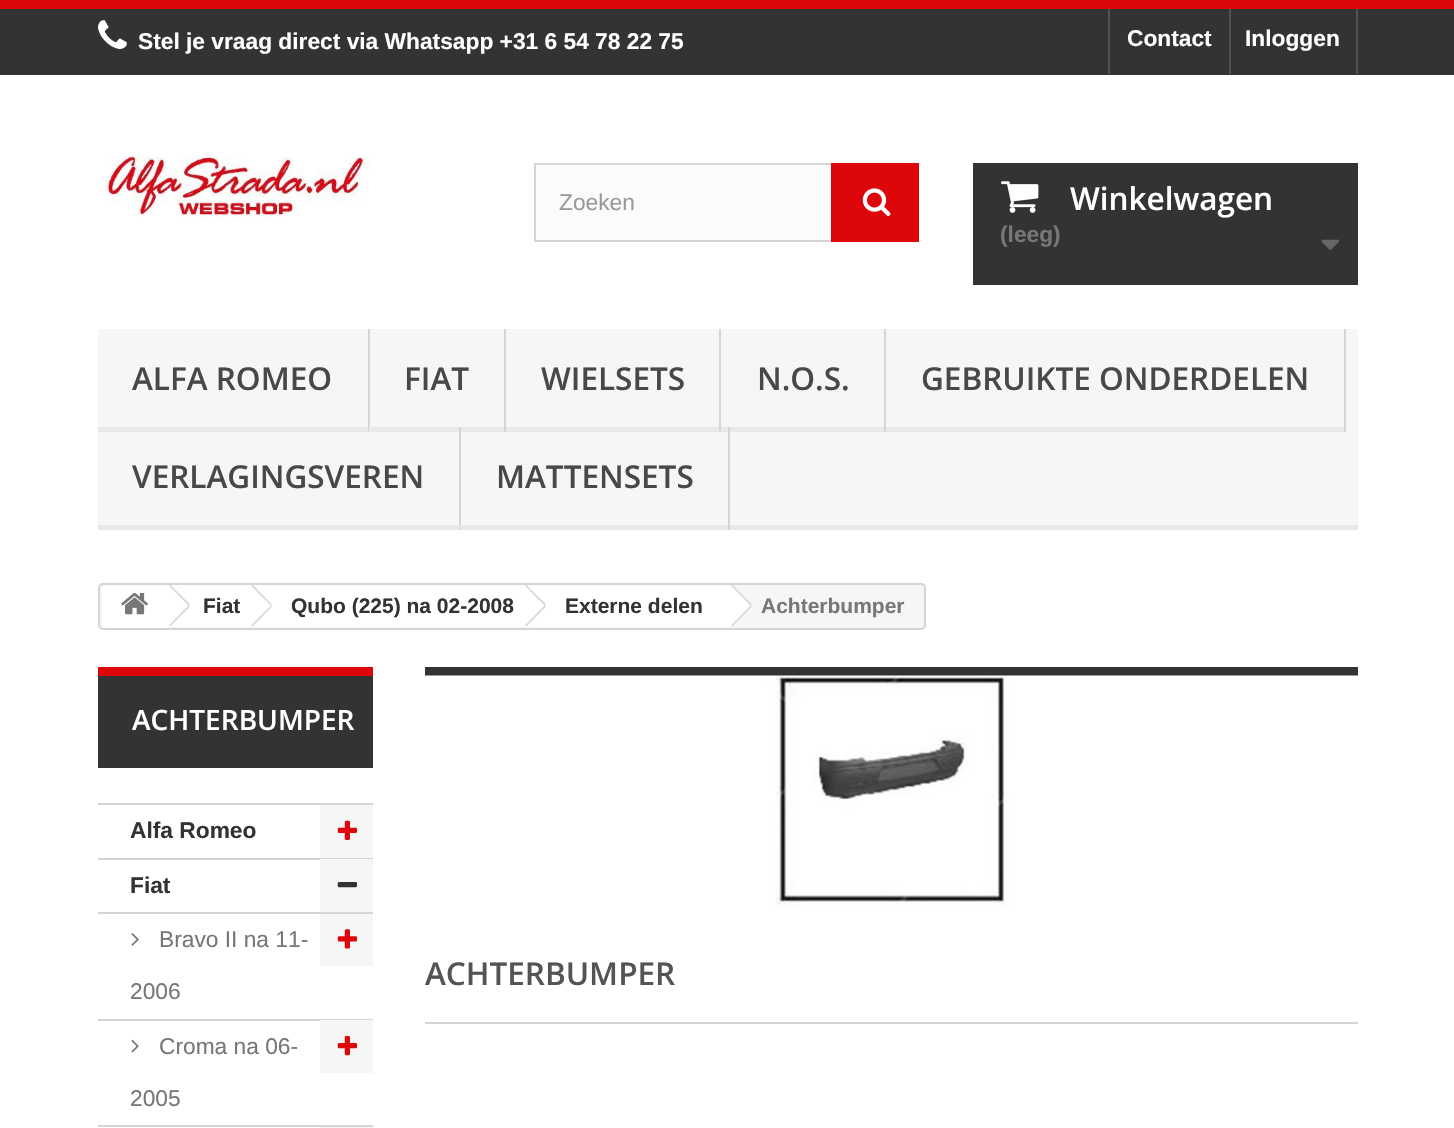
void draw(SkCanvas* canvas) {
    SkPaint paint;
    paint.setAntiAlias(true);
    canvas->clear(0xFFFFFFFF);
    paint.setColor(0xFF333333);
    canvas->drawRect(SkRect::MakeXYWH(0, 9, 1454, 66), paint);
    paint.setColor(0xFFDD060B);
    canvas->drawRect(SkRect::MakeXYWH(0, 0, 1454, 9), paint);
    canvas->drawImageRect(SkImages::DeferredFromEncodedData(SkData::MakeFromFileName("img1.png")), SkRect::MakeXYWH(98, 20, 29, 29), SkSamplingOptions());
    SkFont font1(fontMgr->matchFamilyStyle("Liberation Sans", SkFontStyle::Bold()), 22.75f);
    font1.setSubpixel(true);
    paint.setColor(0xFFFFFFFF);
    canvas->drawString("Stel je vraag direct via Whatsapp +31 6 54 78 22 75", 138, 49, font1, paint);
    paint.setColor(0xFF515151);
    canvas->drawRect(SkRect::MakeXYWH(1108, 9, 2, 65), paint);
    paint.setColor(0xFFFFFFFF);
    canvas->drawString("Contact", 1127, 46, font1, paint);
    paint.setColor(0xFF515151);
    canvas->drawRect(SkRect::MakeXYWH(1356, 9, 2, 65), paint);
    canvas->drawRect(SkRect::MakeXYWH(1229, 9, 2, 65), paint);
    paint.setColor(0xFFFFFFFF);
    canvas->drawString("Inloggen", 1245, 46, font1, paint);
    canvas->drawImageRect(SkImages::DeferredFromEncodedData(SkData::MakeFromFileName("img2.png")), SkRect::MakeXYWH(98, 153, 274, 67), SkSamplingOptions());
    paint.setColor(0xFFFBFBFB);
    canvas->drawRect(SkRect::MakeXYWH(536, 165, 295, 75), paint);
    paint.setStyle(SkPaint::kStroke_Style);
    paint.setStrokeWidth(2);
    paint.setColor(0xFFD6D4D4);
    canvas->drawRect(SkRect::MakeXYWH(535, 164, 383, 77), paint);
    SkFont font2(fontMgr->matchFamilyStyle("Liberation Sans", SkFontStyle::Normal()), 22.75f);
    font2.setSubpixel(true);
    paint.setStyle(SkPaint::kFill_Style);
    paint.setColor(0xFF999999);
    canvas->drawString("Zoeken", 559, 210, font2, paint);
    paint.setColor(0xFFDD060B);
    canvas->drawRect(SkRect::MakeXYWH(831, 163, 88, 79), paint);
    canvas->drawImageRect(SkImages::DeferredFromEncodedData(SkData::MakeFromFileName("img3.png")), SkRect::MakeXYWH(862, 188, 29, 28), SkSamplingOptions());
    paint.setColor(0xFF333333);
    canvas->drawRect(SkRect::MakeXYWH(973, 163, 385, 122), paint);
    canvas->drawImageRect(SkImages::DeferredFromEncodedData(SkData::MakeFromFileName("img4.png")), SkRect::MakeXYWH(1001, 181, 38, 32), SkSamplingOptions());
    SkFont font3(fontMgr->matchFamilyStyle("Open Sans", SkFontStyle(600, SkFontStyle::kNormal_Width, SkFontStyle::kUpright_Slant)), 31.5f);
    font3.setSubpixel(true);
    paint.setColor(0xFFFFFFFF);
    canvas->drawString("Winkelwagen", 1070, 210, font3, paint);
    paint.setColor(0xFF777777);
    canvas->drawString("(leeg)", 1000, 242, font1, paint);
    canvas->drawImageRect(SkImages::DeferredFromEncodedData(SkData::MakeFromFileName("img5.png")), SkRect::MakeXYWH(1321, 239, 19, 11), SkSamplingOptions());
    paint.setColor(0xFFF6F6F6);
    canvas->drawRect(SkRect::MakeXYWH(98, 329, 1260, 196), paint);
    paint.setColor(0xFFE9E9E9);
    canvas->drawRect(SkRect::MakeXYWH(98, 525, 1260, 5), paint);
    paint.setColor(0xFFD6D4D4);
    canvas->drawRect(SkRect::MakeXYWH(368, 329, 2, 103), paint);
    paint.setColor(0xFFE9E9E9);
    canvas->drawRect(SkRect::MakeXYWH(98, 427, 270, 5), paint);
    paint.setColor(0xFF484848);
    canvas->drawString("ALFA ROMEO", 132, 390, font3, paint);
    paint.setColor(0xFFD6D4D4);
    canvas->drawRect(SkRect::MakeXYWH(504, 329, 2, 103), paint);
    paint.setColor(0xFFE9E9E9);
    canvas->drawRect(SkRect::MakeXYWH(369, 427, 135, 5), paint);
    paint.setColor(0xFF484848);
    canvas->drawString("FIAT", 404, 390, font3, paint);
    paint.setColor(0xFFD6D4D4);
    canvas->drawRect(SkRect::MakeXYWH(719, 329, 2, 103), paint);
    paint.setColor(0xFFE9E9E9);
    canvas->drawRect(SkRect::MakeXYWH(506, 427, 213, 5), paint);
    paint.setColor(0xFF484848);
    canvas->drawString("WIELSETS", 541, 390, font3, paint);
    paint.setColor(0xFFD6D4D4);
    canvas->drawRect(SkRect::MakeXYWH(884, 329, 2, 103), paint);
    paint.setColor(0xFFE9E9E9);
    canvas->drawRect(SkRect::MakeXYWH(721, 427, 163, 5), paint);
    paint.setColor(0xFF484848);
    canvas->drawString("N.O.S.", 757, 390, font3, paint);
    paint.setColor(0xFFD6D4D4);
    canvas->drawRect(SkRect::MakeXYWH(1344, 329, 2, 103), paint);
    paint.setColor(0xFFE9E9E9);
    canvas->drawRect(SkRect::MakeXYWH(886, 427, 458, 5), paint);
    paint.setColor(0xFF484848);
    canvas->drawString("GEBRUIKTE ONDERDELEN", 921, 390, font3, paint);
    paint.setColor(0xFFD6D4D4);
    canvas->drawRect(SkRect::MakeXYWH(459, 427, 2, 103), paint);
    paint.setColor(0xFF484848);
    canvas->drawString("VERLAGINGSVEREN", 132, 488, font3, paint);
    paint.setColor(0xFFD6D4D4);
    canvas->drawRect(SkRect::MakeXYWH(728, 427, 2, 103), paint);
    paint.setColor(0xFFE9E9E9);
    canvas->drawRect(SkRect::MakeXYWH(460, 525, 1, 5), paint);
    paint.setColor(0xFF484848);
    canvas->drawString("MATTENSETS", 496, 488, font3, paint);
    paint.setColor(0xFFF6F6F6);
    canvas->drawRoundRect(SkRect::MakeXYWH(99, 584, 826, 45), 4, 4, paint);
    paint.setStyle(SkPaint::kStroke_Style);
    paint.setColor(0xFFD6D4D4);
    canvas->drawRoundRect(SkRect::MakeXYWH(99, 584, 826, 45), 4, 4, paint);
    paint.setStyle(SkPaint::kFill_Style);
    paint.setColor(0xFFFFFFFF);
    canvas->drawPath(SkPathBuilder().moveTo(107, 585).lineTo(168, 585).lineTo(168, 628).lineTo(107, 628).cubicTo(104, 628, 102, 626, 102, 623).lineTo(102, 590).cubicTo(102, 587, 104, 585, 107, 585).close().detach(), paint);
    canvas->drawImageRect(SkImages::DeferredFromEncodedData(SkData::MakeFromFileName("img6.png")), SkRect::MakeXYWH(121, 593, 27, 22), SkSamplingOptions());
    canvas->drawRect(SkRect::MakeXYWH(168, 585, 86, 42), paint);
    paint.setColor(0xFFD6D4D4);
    canvas->drawPath(SkPathBuilder().moveTo(170, 584.5f).lineTo(190, 604.5f).lineTo(188.5f, 605.5f).lineTo(169, 585.5f).close().detach(), paint);
    canvas->drawPath(SkPathBuilder().moveTo(188.5f, 605.5f).lineTo(190, 606.5f).lineTo(170, 626.5f).lineTo(169, 625.5f).close().detach(), paint);
    SkFont font4(fontMgr->matchFamilyStyle("Liberation Sans", SkFontStyle::Bold()), 21);
    font4.setSubpixel(true);
    paint.setColor(0xFF333333);
    canvas->drawString("Fiat", 203, 613, font4, paint);
    paint.setColor(0xFFFFFFFF);
    canvas->drawPath(SkPathBuilder().moveTo(271, 586).lineTo(270, 585).lineTo(267, 585).lineTo(249, 603).lineTo(248, 606).cubicTo(248, 609, 255, 614, 258, 616).cubicTo(259, 618, 267, 628, 270, 626).lineTo(285, 611).cubicTo(287, 609, 292, 605, 288, 603).close().detach(), paint);
    canvas->drawRect(SkRect::MakeXYWH(254, 585, 273, 42), paint);
    paint.setColor(0xFFD6D4D4);
    canvas->drawPath(SkPathBuilder().moveTo(253, 585).lineTo(272, 604.5f).lineTo(271, 605.5f).lineTo(251, 585.5f).lineTo(252, 585).close().detach(), paint);
    canvas->drawPath(SkPathBuilder().moveTo(271, 605.5f).lineTo(272, 606.5f).lineTo(252.5f, 626.5f).lineTo(251, 625.5f).close().detach(), paint);
    paint.setColor(0xFF333333);
    canvas->drawString("Qubo (225) na 02-2008", 291, 613, font4, paint);
    paint.setColor(0xFFFFFFFF);
    canvas->drawPath(SkPathBuilder().moveTo(545, 586).lineTo(544, 585).lineTo(541, 585).lineTo(522, 604).cubicTo(521, 605, 521, 606, 522, 607).lineTo(541, 626).lineTo(542, 626).cubicTo(545, 626, 554, 616, 556, 614).cubicTo(558, 612, 567, 606, 562, 603).close().detach(), paint);
    canvas->drawRect(SkRect::MakeXYWH(527, 585, 203, 42), paint);
    paint.setColor(0xFFD6D4D4);
    canvas->drawPath(SkPathBuilder().moveTo(526, 584.5f).lineTo(546, 604.5f).lineTo(544.5f, 605.5f).lineTo(525, 585.5f).close().detach(), paint);
    canvas->drawPath(SkPathBuilder().moveTo(544.5f, 605.5f).lineTo(546, 606.5f).lineTo(526, 626.5f).lineTo(525, 625.5f).close().detach(), paint);
    paint.setColor(0xFF333333);
    canvas->drawString("Externe delen", 565, 613, font4, paint);
    paint.setColor(0xFFFFFFFF);
    canvas->drawPath(SkPathBuilder().moveTo(733, 586).lineTo(732, 585).lineTo(729, 585).lineTo(717, 597).cubicTo(706, 608, 709, 606, 720, 616).lineTo(725, 622).cubicTo(728, 625, 730, 628, 733, 625).lineTo(745, 614).cubicTo(747, 612, 755, 607, 751, 603).close().detach(), paint);
    paint.setColor(0xFFD6D4D4);
    canvas->drawPath(SkPathBuilder().moveTo(732, 584.5f).lineTo(752, 604.5f).lineTo(750.5f, 605.5f).lineTo(731, 585.5f).close().detach(), paint);
    canvas->drawPath(SkPathBuilder().moveTo(750.5f, 605.5f).lineTo(752, 606.5f).lineTo(732, 626.5f).lineTo(731, 625.5f).close().detach(), paint);
    paint.setColor(0xFF777777);
    canvas->drawString("Achterbumper", 761, 613, font4, paint);
    paint.setColor(0xFF333333);
    canvas->drawRect(SkRect::MakeXYWH(98, 676, 275, 92), paint);
    paint.setColor(0xFFDD060B);
    canvas->drawRect(SkRect::MakeXYWH(98, 667, 275, 9), paint);
    SkFont font5(fontMgr->matchFamilyStyle("Open Sans", SkFontStyle(600, SkFontStyle::kNormal_Width, SkFontStyle::kUpright_Slant)), 28);
    font5.setSubpixel(true);
    paint.setColor(0xFFFFFFFF);
    canvas->drawString("ACHTERBUMPER", 132, 730, font5, paint);
    paint.setColor(0xFFD6D4D4);
    canvas->drawRect(SkRect::MakeXYWH(98, 803, 275, 2), paint);
    canvas->drawRect(SkRect::MakeXYWH(98, 858, 275, 2), paint);
    paint.setColor(0xFF333333);
    canvas->drawString("Alfa Romeo", 130, 838, font1, paint);
    paint.setColor(0xFFF6F6F6);
    canvas->drawRect(SkRect::MakeXYWH(320, 805, 53, 53), paint);
    canvas->drawImageRect(SkImages::DeferredFromEncodedData(SkData::MakeFromFileName("img7.png")), SkRect::MakeXYWH(337, 820, 20, 20), SkSamplingOptions());
    paint.setColor(0xFFD6D4D4);
    canvas->drawRect(SkRect::MakeXYWH(98, 912, 275, 2), paint);
    paint.setColor(0xFF333333);
    canvas->drawString("Fiat", 130, 893, font1, paint);
    paint.setColor(0xFFF6F6F6);
    canvas->drawRect(SkRect::MakeXYWH(320, 859, 53, 53), paint);
    canvas->drawImageRect(SkImages::DeferredFromEncodedData(SkData::MakeFromFileName("img8.png")), SkRect::MakeXYWH(337, 882, 20, 6), SkSamplingOptions());
    paint.setColor(0xFFD6D4D4);
    canvas->drawRect(SkRect::MakeXYWH(98, 1019, 275, 2), paint);
    canvas->drawImageRect(SkImages::DeferredFromEncodedData(SkData::MakeFromFileName("img9.png")), SkRect::MakeXYWH(131, 933, 8, 13), SkSamplingOptions());
    paint.setColor(0xFF777777);
    canvas->drawString("Bravo II na 11-", 159, 947, font2, paint);
    canvas->drawString("2006", 130, 999, font2, paint);
    paint.setColor(0xFFF6F6F6);
    canvas->drawRect(SkRect::MakeXYWH(320, 914, 53, 52), paint);
    canvas->drawImageRect(SkImages::DeferredFromEncodedData(SkData::MakeFromFileName("img10.png")), SkRect::MakeXYWH(337, 929, 20, 20), SkSamplingOptions());
    paint.setColor(0xFFD6D4D4);
    canvas->drawRect(SkRect::MakeXYWH(98, 1125, 275, 2), paint);
    canvas->drawImageRect(SkImages::DeferredFromEncodedData(SkData::MakeFromFileName("img11.png")), SkRect::MakeXYWH(131, 1039, 8, 14), SkSamplingOptions());
    paint.setColor(0xFF777777);
    canvas->drawString("Croma na 06-", 159, 1054, font2, paint);
    canvas->drawString("2005", 130, 1106, font2, paint);
    paint.setColor(0xFFF6F6F6);
    canvas->drawRect(SkRect::MakeXYWH(320, 1020, 53, 53), paint);
    canvas->drawImageRect(SkImages::DeferredFromEncodedData(SkData::MakeFromFileName("img12.png")), SkRect::MakeXYWH(337, 1036, 20, 20), SkSamplingOptions());
    canvas->drawRect(SkRect::MakeXYWH(320, 1127, 53, 1), paint);
    paint.setColor(0xFF333333);
    canvas->drawRect(SkRect::MakeXYWH(425, 667, 933, 9), paint);
    canvas->drawImageRect(SkImages::DeferredFromEncodedData(SkData::MakeFromFileName("img13.png")), SkRect::MakeXYWH(425, 675, 933, 233), SkSamplingOptions());
    paint.setColor(0xFFD6D4D4);
    canvas->drawRect(SkRect::MakeXYWH(425, 1022, 933, 2), paint);
    paint.setColor(0xFF555454);
    canvas->drawString("ACHTERBUMPER", 425, 985, font3, paint);
}
